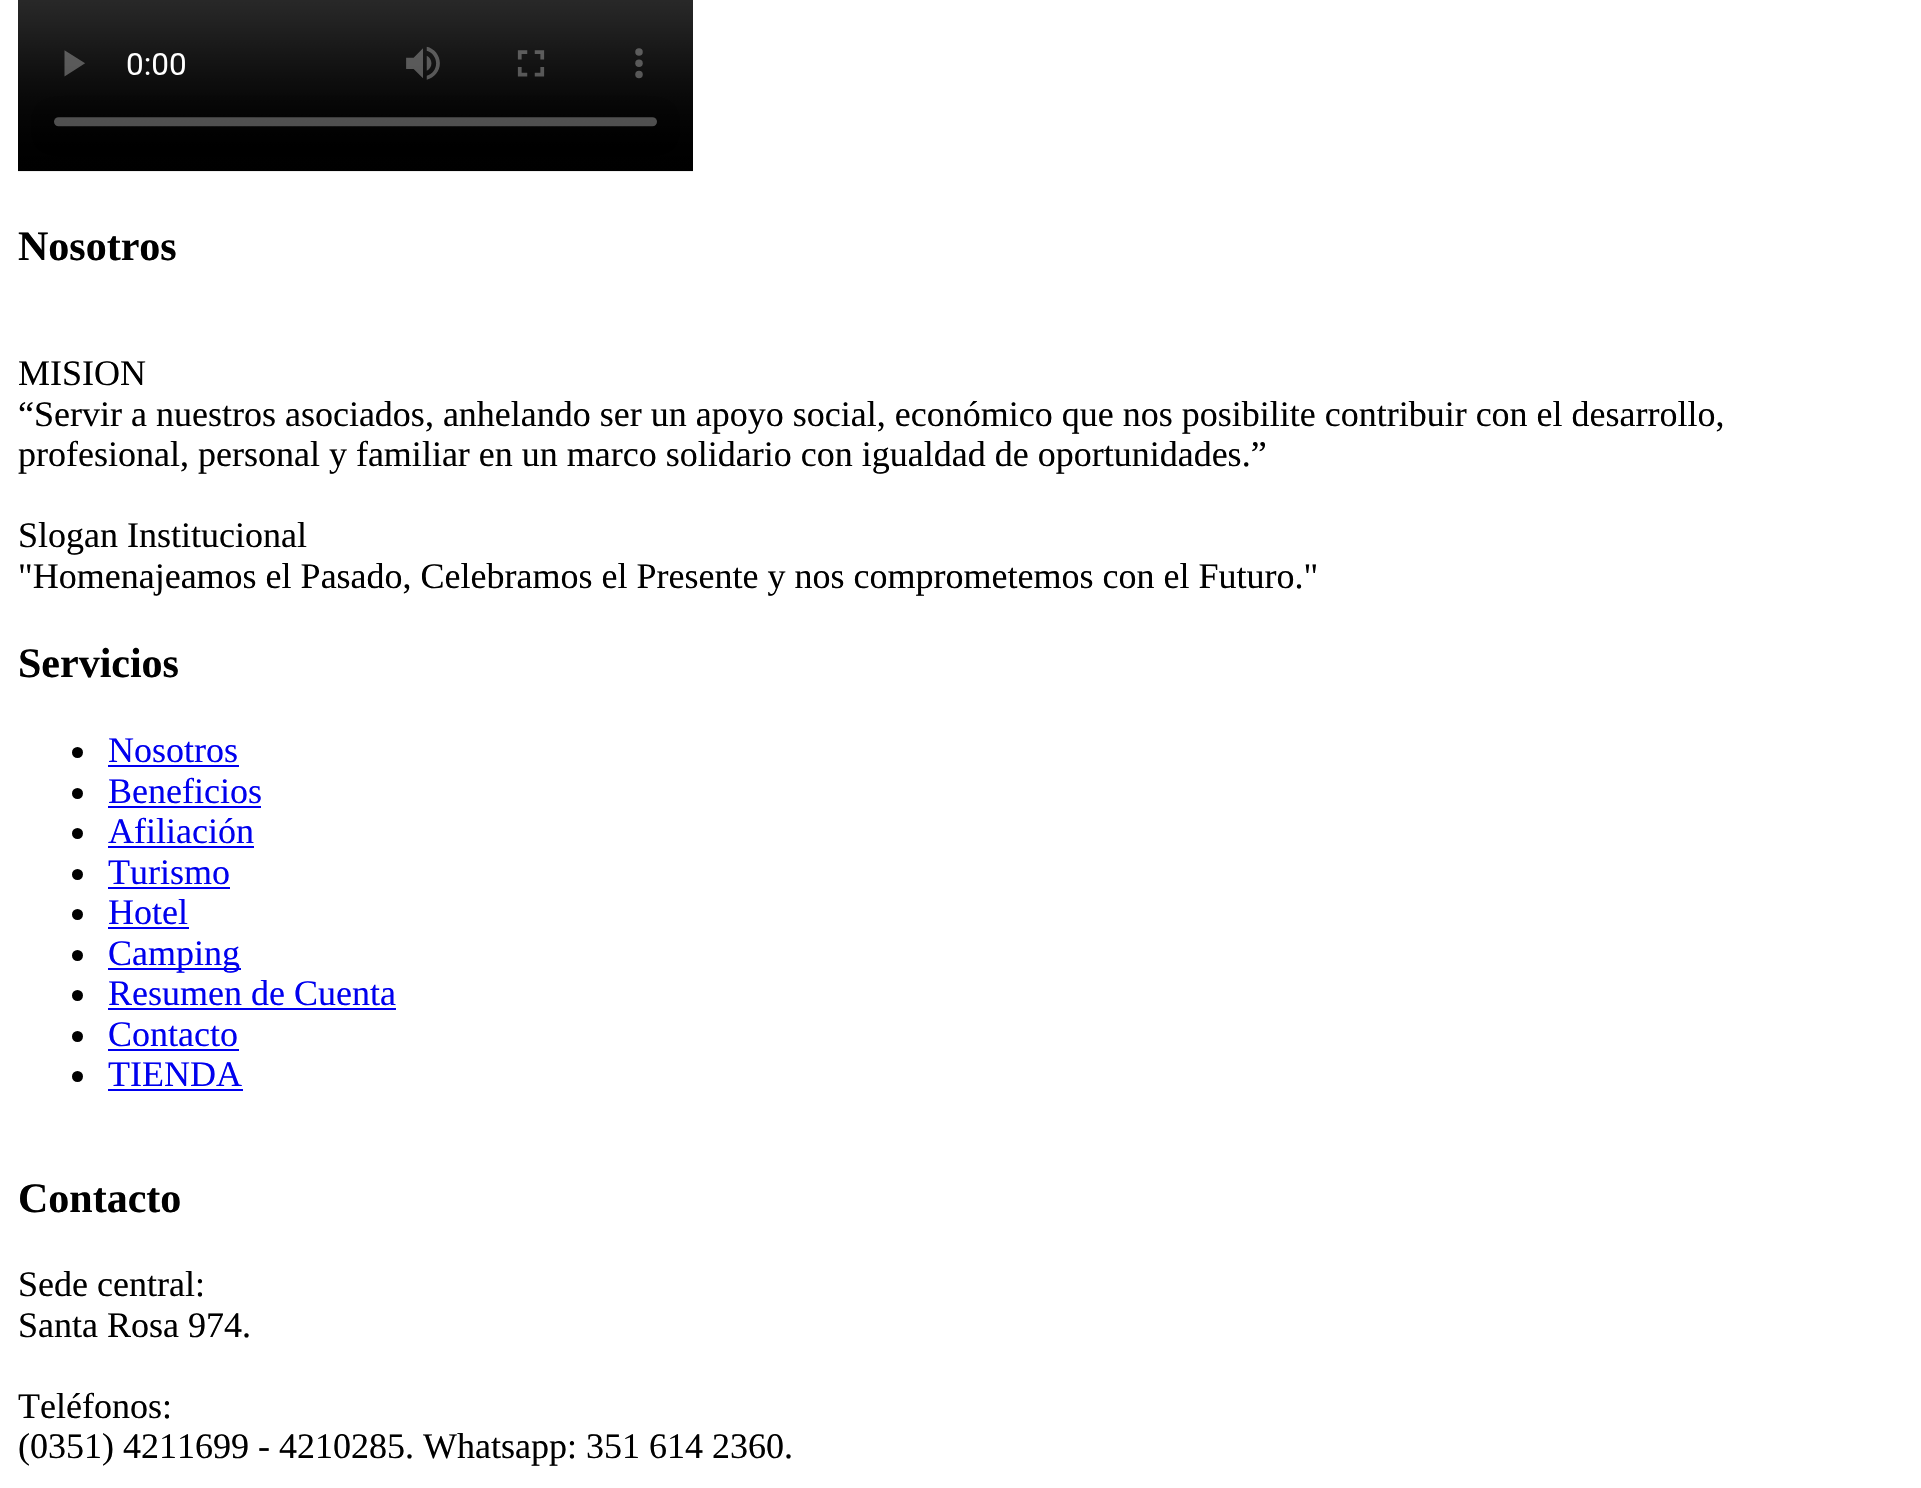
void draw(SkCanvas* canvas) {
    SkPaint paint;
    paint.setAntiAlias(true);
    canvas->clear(0xFFFFFFFF);
    canvas->drawImageRect(SkImages::DeferredFromEncodedData(SkData::MakeFromFileName("img1.png")), SkRect::MakeXYWH(18, 0, 675, 172), SkSamplingOptions());
    SkFont font1(fontMgr->matchFamilyStyle("Liberation Serif", SkFontStyle::Bold()), 42);
    font1.setSubpixel(true);
    paint.setColor(0xFF000000);
    canvas->drawString("Nosotros", 18, 260, font1, paint);
    SkFont font2(fontMgr->matchFamilyStyle("Liberation Serif", SkFontStyle::Normal()), 36);
    font2.setSubpixel(true);
    canvas->drawString("MISION", 18, 385, font2, paint);
    canvas->drawString("“Servir a nuestros asociados, anhelando ser un apoyo social, económico que nos posibilite contribuir con el desarrollo,", 18, 426, font2, paint);
    canvas->drawString("profesional, personal y familiar en un marco solidario con igualdad de oportunidades.”", 18, 466, font2, paint);
    canvas->drawString("Slogan Institucional", 18, 547, font2, paint);
    canvas->drawString("\"Homenajeamos el Pasado, Celebramos el Presente y nos comprometemos con el Futuro.\"", 18, 588, font2, paint);
    canvas->drawString("Servicios", 18, 677, font1, paint);
    canvas->drawCircle(77.5f, 752.5f, 5.5f, paint);
    paint.setColor(0xFF0000EE);
    canvas->drawString("Nosotros", 108, 762, font2, paint);
    canvas->drawRect(SkRect::MakeXYWH(108, 765, 131, 2), paint);
    paint.setColor(0xFF000000);
    canvas->drawCircle(77.5f, 793.5f, 5.5f, paint);
    paint.setColor(0xFF0000EE);
    canvas->drawString("Beneficios", 108, 803, font2, paint);
    canvas->drawRect(SkRect::MakeXYWH(108, 806, 153, 2), paint);
    paint.setColor(0xFF000000);
    canvas->drawCircle(77.5f, 833.5f, 5.5f, paint);
    paint.setColor(0xFF0000EE);
    canvas->drawString("Afiliación", 108, 843, font2, paint);
    canvas->drawRect(SkRect::MakeXYWH(108, 846, 146, 2), paint);
    paint.setColor(0xFF000000);
    canvas->drawCircle(77.5f, 874.5f, 5.5f, paint);
    paint.setColor(0xFF0000EE);
    canvas->drawString("Turismo", 108, 884, font2, paint);
    canvas->drawRect(SkRect::MakeXYWH(108, 887, 122, 2), paint);
    paint.setColor(0xFF000000);
    canvas->drawCircle(77.5f, 914.5f, 5.5f, paint);
    paint.setColor(0xFF0000EE);
    canvas->drawString("Hotel", 108, 924, font2, paint);
    canvas->drawRect(SkRect::MakeXYWH(108, 927, 81, 2), paint);
    paint.setColor(0xFF000000);
    canvas->drawCircle(77.5f, 955.5f, 5.5f, paint);
    paint.setColor(0xFF0000EE);
    canvas->drawRect(SkRect::MakeXYWH(108, 968, 133, 2), paint);
    canvas->drawString("Camping", 108, 965, font2, paint);
    paint.setColor(0xFF000000);
    canvas->drawCircle(77.5f, 995.5f, 5.5f, paint);
    paint.setColor(0xFF0000EE);
    canvas->drawString("Resumen de Cuenta", 108, 1005, font2, paint);
    canvas->drawRect(SkRect::MakeXYWH(108, 1008, 288, 2), paint);
    paint.setColor(0xFF000000);
    canvas->drawCircle(77.5f, 1036.5f, 5.5f, paint);
    paint.setColor(0xFF0000EE);
    canvas->drawString("Contacto", 108, 1046, font2, paint);
    canvas->drawRect(SkRect::MakeXYWH(108, 1049, 131, 2), paint);
    paint.setColor(0xFF000000);
    canvas->drawCircle(77.5f, 1076.5f, 5.5f, paint);
    paint.setColor(0xFF0000EE);
    canvas->drawString("TIENDA", 108, 1086, font2, paint);
    canvas->drawRect(SkRect::MakeXYWH(108, 1089, 135, 2), paint);
    paint.setColor(0xFF000000);
    canvas->drawString("Contacto", 18, 1212, font1, paint);
    canvas->drawString("Sede central:", 18, 1296, font2, paint);
    canvas->drawString("Santa Rosa 974.", 18, 1337, font2, paint);
    canvas->drawString("Teléfonos:", 18, 1418, font2, paint);
    canvas->drawString("(0351) 4211699 - 4210285. Whatsapp: 351 614 2360.", 18, 1458, font2, paint);
}
